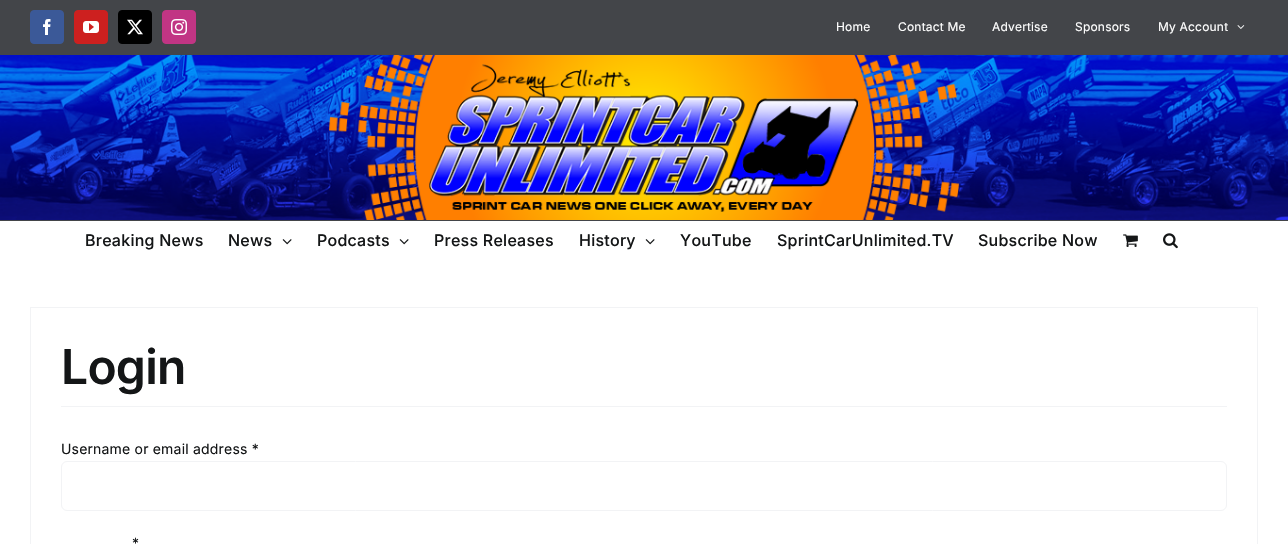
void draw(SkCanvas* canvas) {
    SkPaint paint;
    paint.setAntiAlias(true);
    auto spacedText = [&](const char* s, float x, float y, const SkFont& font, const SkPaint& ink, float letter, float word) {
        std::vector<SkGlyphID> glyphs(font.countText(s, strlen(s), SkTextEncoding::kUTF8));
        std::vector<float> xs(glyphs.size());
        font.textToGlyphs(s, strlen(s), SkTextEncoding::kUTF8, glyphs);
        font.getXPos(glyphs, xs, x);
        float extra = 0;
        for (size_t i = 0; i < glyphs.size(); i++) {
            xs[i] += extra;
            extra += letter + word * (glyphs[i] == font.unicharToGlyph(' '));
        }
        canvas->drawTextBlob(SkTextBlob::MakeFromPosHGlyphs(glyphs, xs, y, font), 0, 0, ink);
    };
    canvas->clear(0xFFFFFFFF);
    paint.setColor(0xFF434549);
    canvas->drawRect(SkRect::MakeXYWH(0, 0, 1288, 55), paint);
    paint.setColor(0xFF3B5998);
    canvas->drawRoundRect(SkRect::MakeXYWH(30.5f, 10.5f, 33, 33), 3.5f, 3.5f, paint);
    paint.setStyle(SkPaint::kStroke_Style);
    paint.setStrokeWidth(1);
    canvas->drawRoundRect(SkRect::MakeXYWH(30.5f, 10.5f, 33, 33), 3.5f, 3.5f, paint);
    canvas->drawImageRect(SkImages::DeferredFromEncodedData(SkData::MakeFromFileName("img1.png")), SkRect::MakeXYWH(43, 19, 8, 16), SkSamplingOptions());
    paint.setStyle(SkPaint::kFill_Style);
    paint.setColor(0xFFCD201F);
    canvas->drawRoundRect(SkRect::MakeXYWH(74.5f, 10.5f, 33, 33), 3.5f, 3.5f, paint);
    paint.setStyle(SkPaint::kStroke_Style);
    canvas->drawRoundRect(SkRect::MakeXYWH(74.5f, 10.5f, 33, 33), 3.5f, 3.5f, paint);
    canvas->drawImageRect(SkImages::DeferredFromEncodedData(SkData::MakeFromFileName("img2.png")), SkRect::MakeXYWH(83, 21, 16, 12), SkSamplingOptions());
    paint.setStyle(SkPaint::kFill_Style);
    paint.setColor(0xFF000000);
    canvas->drawRoundRect(SkRect::MakeXYWH(118.5f, 10.5f, 33, 33), 3.5f, 3.5f, paint);
    paint.setStyle(SkPaint::kStroke_Style);
    canvas->drawRoundRect(SkRect::MakeXYWH(118.5f, 10.5f, 33, 33), 3.5f, 3.5f, paint);
    canvas->drawImageRect(SkImages::DeferredFromEncodedData(SkData::MakeFromFileName("img3.png")), SkRect::MakeXYWH(127, 19, 16, 16), SkSamplingOptions());
    paint.setStyle(SkPaint::kFill_Style);
    paint.setColor(0xFFC13584);
    canvas->drawRoundRect(SkRect::MakeXYWH(162.5f, 10.5f, 33, 33), 3.5f, 3.5f, paint);
    paint.setStyle(SkPaint::kStroke_Style);
    canvas->drawRoundRect(SkRect::MakeXYWH(162.5f, 10.5f, 33, 33), 3.5f, 3.5f, paint);
    canvas->drawImageRect(SkImages::DeferredFromEncodedData(SkData::MakeFromFileName("img4.png")), SkRect::MakeXYWH(171, 19, 16, 16), SkSamplingOptions());
    SkFont font1(fontMgr->matchFamilyStyle("Inter", SkFontStyle::Normal()), 12);
    font1.setSubpixel(true);
    paint.setStyle(SkPaint::kFill_Style);
    paint.setColor(0xFFFFFFFF);
    spacedText("Home", 836, 31, font1, paint, 0.2f, 0);
    spacedText("Contact Me", 898, 31, font1, paint, 0.2f, 0);
    spacedText("Advertise", 992, 31, font1, paint, 0.2f, 0);
    spacedText("Sponsors", 1075, 31, font1, paint, 0.2f, 0);
    spacedText("My Account", 1158, 31, font1, paint, 0.2f, 0);
    canvas->drawImageRect(SkImages::DeferredFromEncodedData(SkData::MakeFromFileName("img5.png")), SkRect::MakeXYWH(1237, 25, 8, 4), SkSamplingOptions());
    paint.setColor(0xFF434549);
    canvas->drawRect(SkRect::MakeXYWH(0, 220, 1288, 1), paint);
    canvas->drawImageRect(SkImages::DeferredFromEncodedData(SkData::MakeFromFileName("img6.png")), SkRect::MakeXYWH(0, 55, 1288, 165), SkSamplingOptions());
    SkFont font2(fontMgr->matchFamilyStyle("Inter", SkFontStyle(500, SkFontStyle::kNormal_Width, SkFontStyle::kUpright_Slant)), 16);
    font2.setSubpixel(true);
    paint.setColor(0xFF141617);
    spacedText("Breaking News", 85, 246, font2, paint, 0.25f, 0);
    spacedText("News", 228, 246, font2, paint, 0.25f, 0);
    canvas->drawImageRect(SkImages::DeferredFromEncodedData(SkData::MakeFromFileName("img7.png")), SkRect::MakeXYWH(282, 239, 10, 6), SkSamplingOptions());
    spacedText("Podcasts", 317, 246, font2, paint, 0.25f, 0);
    canvas->drawImageRect(SkImages::DeferredFromEncodedData(SkData::MakeFromFileName("img7.png")), SkRect::MakeXYWH(399, 239, 10, 6), SkSamplingOptions());
    spacedText("Press Releases", 434, 246, font2, paint, 0.25f, 0);
    spacedText("History", 579, 246, font2, paint, 0.25f, 0);
    canvas->drawImageRect(SkImages::DeferredFromEncodedData(SkData::MakeFromFileName("img7.png")), SkRect::MakeXYWH(645, 239, 10, 6), SkSamplingOptions());
    spacedText("YouTube", 680, 246, font2, paint, 0.25f, 0);
    spacedText("SprintCarUnlimited.TV", 777, 246, font2, paint, 0.25f, 0);
    spacedText("Subscribe Now", 978, 246, font2, paint, 0.25f, 0);
    canvas->drawImageRect(SkImages::DeferredFromEncodedData(SkData::MakeFromFileName("img8.png")), SkRect::MakeXYWH(1123, 234, 15, 13), SkSamplingOptions());
    canvas->drawImageRect(SkImages::DeferredFromEncodedData(SkData::MakeFromFileName("img9.png")), SkRect::MakeXYWH(1163, 233, 15, 16), SkSamplingOptions());
    paint.setStyle(SkPaint::kStroke_Style);
    paint.setColor(0xFFF2F3F5);
    canvas->drawRect(SkRect::MakeXYWH(30.5f, 307.5f, 1227, 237), paint);
    paint.setStyle(SkPaint::kFill_Style);
    canvas->drawRect(SkRect::MakeXYWH(61, 406, 1166, 1), paint);
    SkFont font3(fontMgr->matchFamilyStyle("Inter", SkFontStyle(600, SkFontStyle::kNormal_Width, SkFontStyle::kUpright_Slant)), 48);
    font3.setSubpixel(true);
    paint.setColor(0xFF141617);
    spacedText("Login", 61, 384, font3, paint, -0.75f, 0);
    SkFont font4(fontMgr->matchFamilyStyle("Inter", SkFontStyle::Normal()), 14);
    font4.setSubpixel(true);
    spacedText("Username or email address *", 61, 454, font4, paint, 0.2f, 0);
    paint.setStyle(SkPaint::kStroke_Style);
    paint.setColor(0xFFF2F3F5);
    canvas->drawRoundRect(SkRect::MakeXYWH(61.5f, 461.5f, 1165, 49), 5.5f, 5.5f, paint);
    paint.setStyle(SkPaint::kFill_Style);
    paint.setColor(0xFF141617);
    spacedText("*", 132, 548, font4, paint, 0.2f, 0);
}
